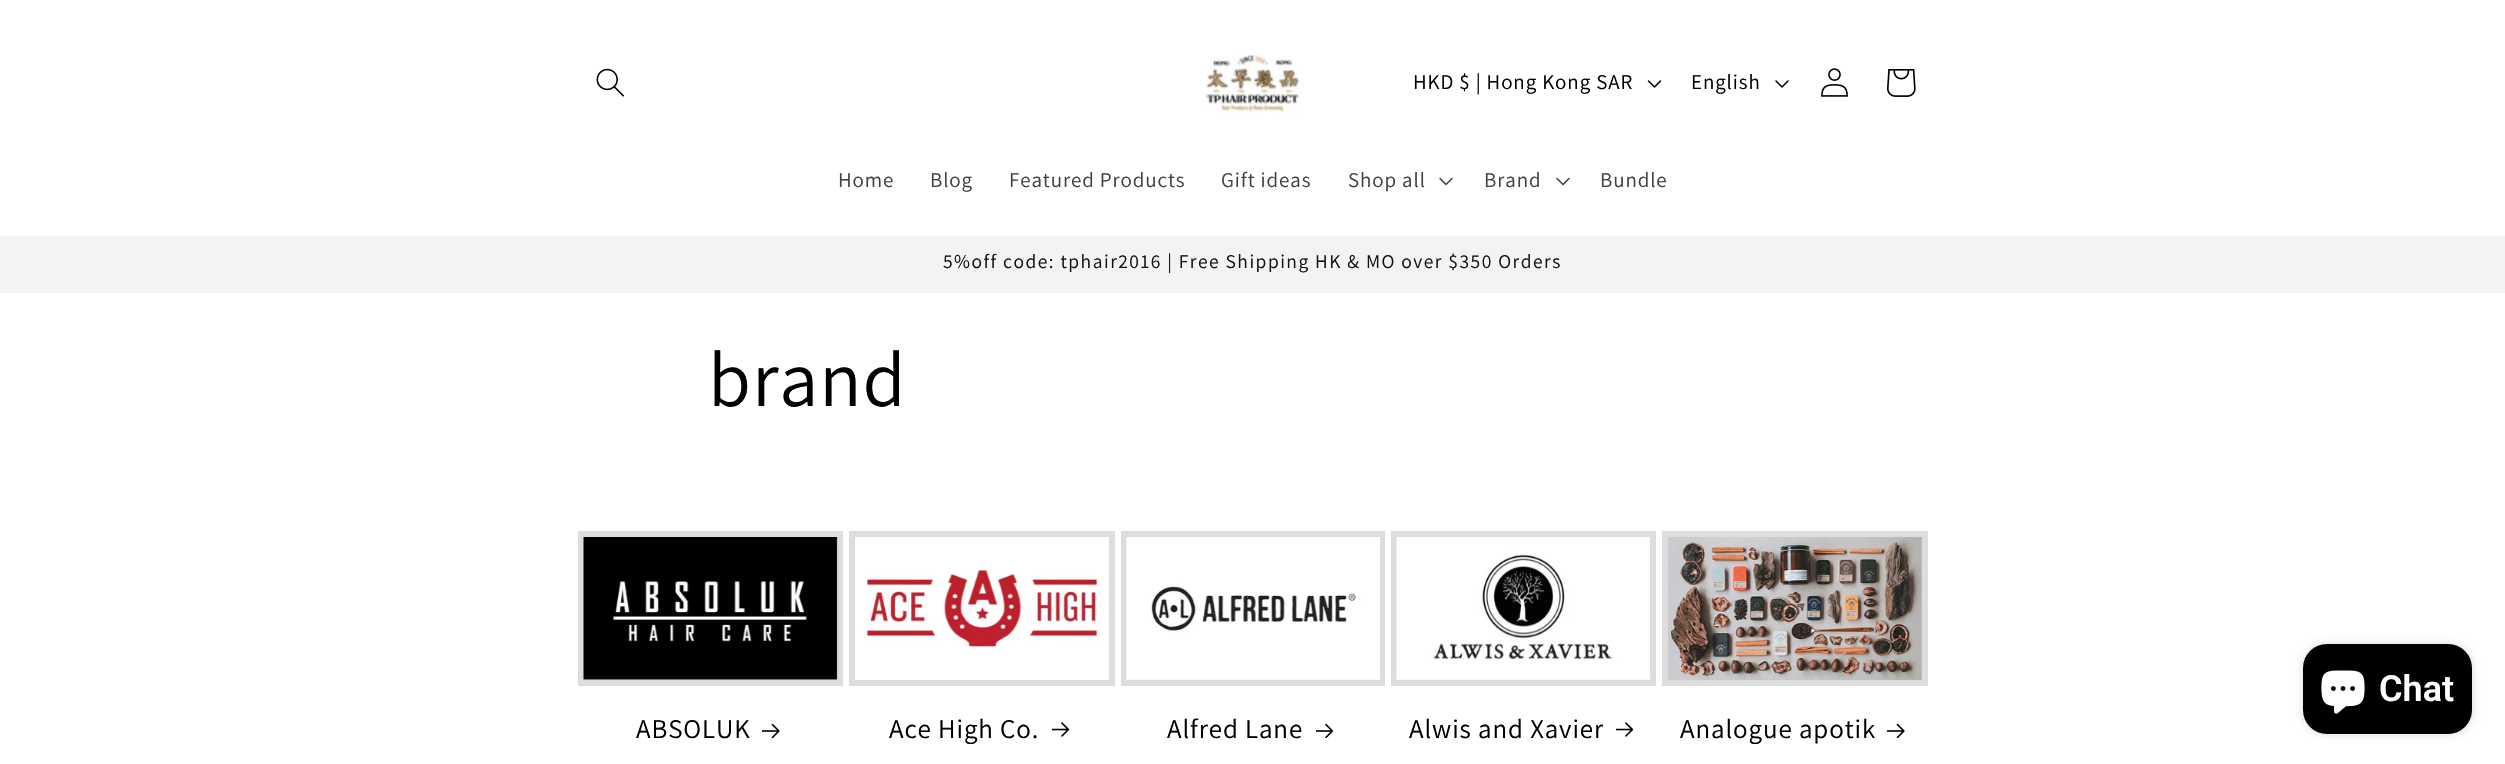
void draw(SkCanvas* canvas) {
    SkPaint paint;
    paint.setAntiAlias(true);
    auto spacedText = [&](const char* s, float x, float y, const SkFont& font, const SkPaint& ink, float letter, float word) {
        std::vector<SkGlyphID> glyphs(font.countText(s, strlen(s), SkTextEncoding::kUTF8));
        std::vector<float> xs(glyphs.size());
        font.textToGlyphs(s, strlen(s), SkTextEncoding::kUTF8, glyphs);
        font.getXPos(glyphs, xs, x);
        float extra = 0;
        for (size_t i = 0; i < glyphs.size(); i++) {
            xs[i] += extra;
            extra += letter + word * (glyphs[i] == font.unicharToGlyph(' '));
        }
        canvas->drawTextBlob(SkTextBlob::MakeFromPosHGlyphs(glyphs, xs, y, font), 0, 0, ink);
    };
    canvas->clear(0xFFFFFFFF);
    canvas->drawImageRect(SkImages::DeferredFromEncodedData(SkData::MakeFromFileName("img1.png")), SkRect::MakeXYWH(596, 68, 28, 29), SkSamplingOptions());
    canvas->drawImageRect(SkImages::DeferredFromEncodedData(SkData::MakeFromFileName("img2.png")), SkRect::MakeXYWH(1205, 55, 95, 60), SkSamplingOptions());
    SkFont font1(fontMgr->matchFamilyStyle("Assistant", SkFontStyle::Normal()), 21);
    font1.setSubpixel(true);
    paint.setColor(0xFF000000);
    spacedText("HKD $ | Hong Kong SAR", 1413, 89, font1, paint, 0.9f, 0);
    canvas->drawImageRect(SkImages::DeferredFromEncodedData(SkData::MakeFromFileName("img3.png")), SkRect::MakeXYWH(1647, 80, 15, 8), SkSamplingOptions());
    spacedText("English", 1691, 89, font1, paint, 0.9f, 0);
    canvas->drawImageRect(SkImages::DeferredFromEncodedData(SkData::MakeFromFileName("img4.png")), SkRect::MakeXYWH(1775, 80, 14, 8), SkSamplingOptions());
    canvas->drawImageRect(SkImages::DeferredFromEncodedData(SkData::MakeFromFileName("img5.png")), SkRect::MakeXYWH(1821, 68, 27, 29), SkSamplingOptions());
    canvas->drawImageRect(SkImages::DeferredFromEncodedData(SkData::MakeFromFileName("img6.png")), SkRect::MakeXYWH(1887, 69, 29, 28), SkSamplingOptions());
    paint.setColor(0xFF404040);
    spacedText("Home", 838, 187, font1, paint, 0.9f, 0);
    spacedText("Blog", 930, 187, font1, paint, 0.9f, 0);
    spacedText("Featured Products", 1009, 187, font1, paint, 0.9f, 0);
    spacedText("Gift ideas", 1221, 187, font1, paint, 0.9f, 0);
    spacedText("Shop all", 1348, 187, font1, paint, 0.9f, 0);
    canvas->drawImageRect(SkImages::DeferredFromEncodedData(SkData::MakeFromFileName("img7.png")), SkRect::MakeXYWH(1439, 177, 14, 9), SkSamplingOptions());
    spacedText("Brand", 1484, 187, font1, paint, 0.9f, 0);
    canvas->drawImageRect(SkImages::DeferredFromEncodedData(SkData::MakeFromFileName("img7.png")), SkRect::MakeXYWH(1556, 177, 14, 9), SkSamplingOptions());
    spacedText("Bundle", 1600, 187, font1, paint, 0.9f, 0);
    paint.setColor(0xFFF3F3F3);
    canvas->drawRect(SkRect::MakeXYWH(0, 236, 2505, 57), paint);
    SkFont font2(fontMgr->matchFamilyStyle("Assistant", SkFontStyle::Normal()), 19.5f);
    font2.setSubpixel(true);
    paint.setColor(0xFF121212);
    spacedText("5%off code: tphair2016 | Free Shipping HK & MO over $350 Orders", 943, 268, font2, paint, 1.5f, 0);
    SkFont font3(fontMgr->matchFamilyStyle("Assistant", SkFontStyle::Normal()), 78);
    font3.setSubpixel(true);
    paint.setColor(0xFF000000);
    spacedText("brand", 708, 406, font3, paint, 0.9f, 0);
    paint.setColor(0xFFF3F3F3);
    canvas->drawRect(SkRect::MakeXYWH(581, 534, 259, 149), paint);
    paint.setStyle(SkPaint::kStroke_Style);
    paint.setStrokeWidth(6);
    paint.setColor(0xFFDDDDDD);
    canvas->drawRect(SkRect::MakeXYWH(581, 534, 259, 149), paint);
    canvas->drawImageRect(SkImages::DeferredFromEncodedData(SkData::MakeFromFileName("img8.png")), SkRect::MakeXYWH(583, 537, 255, 143), SkSamplingOptions());
    SkFont font4(fontMgr->matchFamilyStyle("Assistant", SkFontStyle::Normal()), 27);
    font4.setSubpixel(true);
    paint.setStyle(SkPaint::kFill_Style);
    paint.setColor(0xFF000000);
    spacedText("ABSOLUK", 636, 738, font4, paint, 0.9f, 0);
    canvas->drawImageRect(SkImages::DeferredFromEncodedData(SkData::MakeFromFileName("img9.png")), SkRect::MakeXYWH(762, 723, 18, 15), SkSamplingOptions());
    paint.setStyle(SkPaint::kStroke_Style);
    paint.setColor(0xFFDDDDDD);
    canvas->drawRect(SkRect::MakeXYWH(852, 534, 260, 149), paint);
    canvas->drawImageRect(SkImages::DeferredFromEncodedData(SkData::MakeFromFileName("img10.png")), SkRect::MakeXYWH(855, 537, 254, 143), SkSamplingOptions());
    paint.setStyle(SkPaint::kFill_Style);
    paint.setColor(0xFF000000);
    spacedText("Ace High Co.", 889, 738, font4, paint, 0.9f, 0);
    canvas->drawImageRect(SkImages::DeferredFromEncodedData(SkData::MakeFromFileName("img11.png")), SkRect::MakeXYWH(1052, 722, 18, 15), SkSamplingOptions());
    paint.setColor(0xFFF3F3F3);
    canvas->drawRect(SkRect::MakeXYWH(1127, 679, 252, 1), paint);
    paint.setStyle(SkPaint::kStroke_Style);
    paint.setColor(0xFFDDDDDD);
    canvas->drawRect(SkRect::MakeXYWH(1124, 534, 258, 149), paint);
    canvas->drawImageRect(SkImages::DeferredFromEncodedData(SkData::MakeFromFileName("img12.png")), SkRect::MakeXYWH(1126, 537, 254, 143), SkSamplingOptions());
    paint.setStyle(SkPaint::kFill_Style);
    paint.setColor(0xFF000000);
    spacedText("Alfred Lane", 1167, 738, font4, paint, 0.9f, 0);
    canvas->drawImageRect(SkImages::DeferredFromEncodedData(SkData::MakeFromFileName("img13.png")), SkRect::MakeXYWH(1316, 723, 18, 15), SkSamplingOptions());
    paint.setColor(0xFFF3F3F3);
    canvas->drawRect(SkRect::MakeXYWH(1397, 679, 253, 1), paint);
    paint.setStyle(SkPaint::kStroke_Style);
    paint.setColor(0xFFDDDDDD);
    canvas->drawRect(SkRect::MakeXYWH(1394, 534, 259, 149), paint);
    canvas->drawImageRect(SkImages::DeferredFromEncodedData(SkData::MakeFromFileName("img14.png")), SkRect::MakeXYWH(1396, 537, 254, 143), SkSamplingOptions());
    paint.setStyle(SkPaint::kFill_Style);
    paint.setColor(0xFF000000);
    spacedText("Alwis and Xavier", 1409, 738, font4, paint, 0.9f, 0);
    canvas->drawImageRect(SkImages::DeferredFromEncodedData(SkData::MakeFromFileName("img11.png")), SkRect::MakeXYWH(1616, 722, 18, 15), SkSamplingOptions());
    paint.setStyle(SkPaint::kStroke_Style);
    paint.setColor(0xFFDDDDDD);
    canvas->drawRect(SkRect::MakeXYWH(1665, 534, 260, 149), paint);
    canvas->drawImageRect(SkImages::DeferredFromEncodedData(SkData::MakeFromFileName("img15.png")), SkRect::MakeXYWH(1668, 537, 254, 143), SkSamplingOptions());
    paint.setStyle(SkPaint::kFill_Style);
    paint.setColor(0xFF000000);
    spacedText("Analogue apotik", 1680, 738, font4, paint, 0.9f, 0);
    canvas->drawImageRect(SkImages::DeferredFromEncodedData(SkData::MakeFromFileName("img9.png")), SkRect::MakeXYWH(1887, 723, 18, 15), SkSamplingOptions());
    paint.setColor(0x26000000);
    paint.setMaskFilter(SkMaskFilter::MakeBlur(kNormal_SkBlurStyle, 4));
    canvas->drawRoundRect(SkRect::MakeXYWH(2303, 644, 169, 90), 24, 24, paint);
    paint.setMaskFilter(nullptr);
    paint.setColor(0xFF000000);
    canvas->drawRoundRect(SkRect::MakeXYWH(2303, 644, 169, 90), 24, 24, paint);
    canvas->drawImageRect(SkImages::DeferredFromEncodedData(SkData::MakeFromFileName("img16.png")), SkRect::MakeXYWH(2321, 670, 44, 44), SkSamplingOptions());
    SkFont font5(fontMgr->matchFamilyStyle("Roboto", SkFontStyle(600, SkFontStyle::kNormal_Width, SkFontStyle::kUpright_Slant)), 36);
    font5.setSubpixel(true);
    paint.setColor(0xFFFFFFFF);
    canvas->drawString("Chat", 2379, 701, font5, paint);
}
